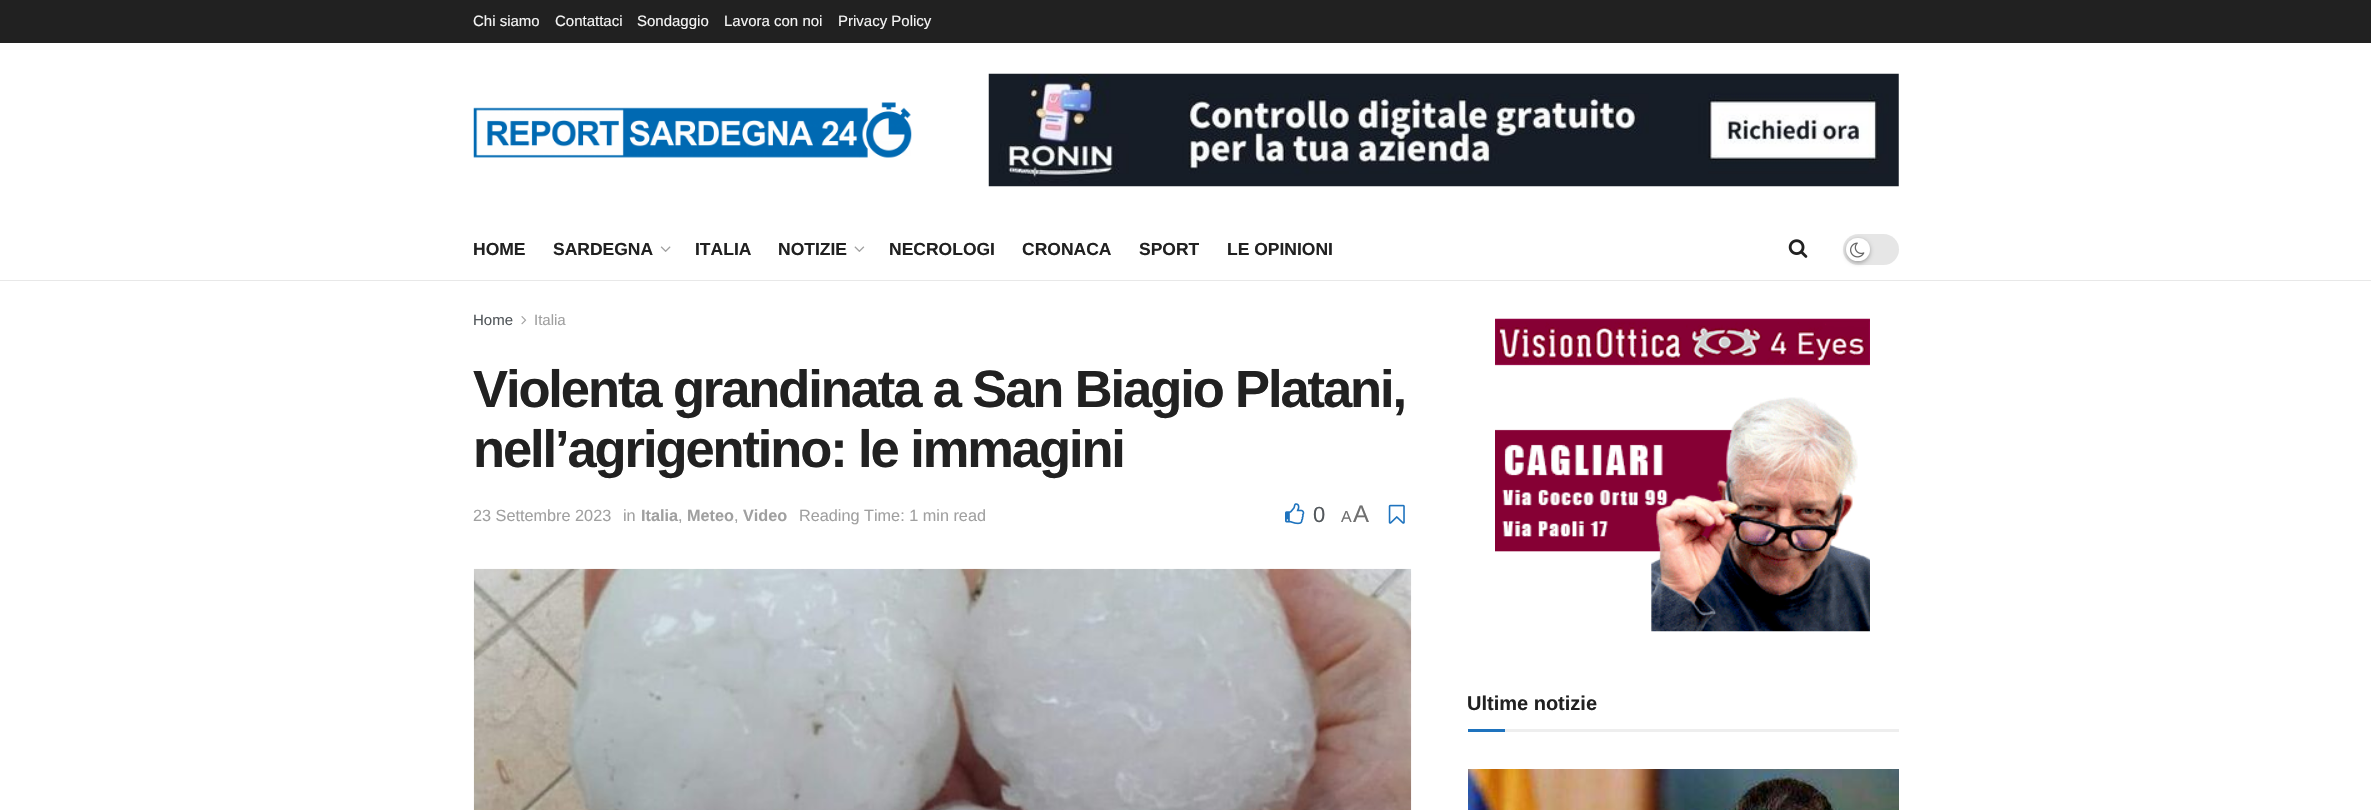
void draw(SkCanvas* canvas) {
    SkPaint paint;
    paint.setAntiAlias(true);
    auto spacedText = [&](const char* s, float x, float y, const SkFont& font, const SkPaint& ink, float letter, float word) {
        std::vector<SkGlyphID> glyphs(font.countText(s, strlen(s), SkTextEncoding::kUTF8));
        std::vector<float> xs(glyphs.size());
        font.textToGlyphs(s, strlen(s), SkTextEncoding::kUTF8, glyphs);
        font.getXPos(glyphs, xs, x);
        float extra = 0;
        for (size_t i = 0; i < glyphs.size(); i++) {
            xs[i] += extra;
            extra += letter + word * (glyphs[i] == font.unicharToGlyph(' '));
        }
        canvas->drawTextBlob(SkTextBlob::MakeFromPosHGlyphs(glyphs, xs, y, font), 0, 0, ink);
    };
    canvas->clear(0xFFFFFFFF);
    paint.setColor(0xFF212121);
    canvas->drawRect(SkRect::MakeXYWH(0, 0, 2371, 43), paint);
    SkFont font1(fontMgr->matchFamilyStyle("Liberation Sans", SkFontStyle::Normal()), 15);
    font1.setSubpixel(true);
    paint.setColor(0xFFF5F5F5);
    canvas->drawString("Chi siamo", 473, 26, font1, paint);
    canvas->drawString("Contattaci", 555, 26, font1, paint);
    canvas->drawString("Sondaggio", 637, 26, font1, paint);
    canvas->drawString("Lavora con noi", 724, 26, font1, paint);
    canvas->drawString("Privacy Policy", 838, 26, font1, paint);
    canvas->drawImageRect(SkImages::DeferredFromEncodedData(SkData::MakeFromFileName("img1.png")), SkRect::MakeXYWH(473, 102, 439, 56), SkSamplingOptions());
    canvas->drawImageRect(SkImages::DeferredFromEncodedData(SkData::MakeFromFileName("img2.png")), SkRect::MakeXYWH(988, 73, 911, 114), SkSamplingOptions());
    paint.setColor(0xFFE8E8E8);
    canvas->drawRect(SkRect::MakeXYWH(0, 280, 2371, 1), paint);
    SkFont font2(fontMgr->matchFamilyStyle("Liberation Sans", SkFontStyle::Bold()), 17.5f);
    font2.setSubpixel(true);
    paint.setColor(0xFF212121);
    canvas->drawString("HOME", 473, 255, font2, paint);
    canvas->drawString("SARDEGNA", 553, 255, font2, paint);
    canvas->drawImageRect(SkImages::DeferredFromEncodedData(SkData::MakeFromFileName("img3.png")), SkRect::MakeXYWH(660, 246, 11, 6), SkSamplingOptions());
    canvas->drawString("ITALIA", 695, 255, font2, paint);
    canvas->drawString("NOTIZIE", 778, 255, font2, paint);
    canvas->drawImageRect(SkImages::DeferredFromEncodedData(SkData::MakeFromFileName("img4.png")), SkRect::MakeXYWH(854, 246, 11, 6), SkSamplingOptions());
    canvas->drawString("NECROLOGI", 889, 255, font2, paint);
    canvas->drawString("CRONACA", 1022, 255, font2, paint);
    canvas->drawString("SPORT", 1139, 255, font2, paint);
    canvas->drawString("LE OPINIONI", 1227, 255, font2, paint);
    canvas->drawImageRect(SkImages::DeferredFromEncodedData(SkData::MakeFromFileName("img5.png")), SkRect::MakeXYWH(1788, 239, 20, 19), SkSamplingOptions());
    paint.setColor(0xFFE6E6E6);
    canvas->drawRoundRect(SkRect::MakeXYWH(1843, 234, 56, 31), 15.5f, 15.5f, paint);
    paint.setColor(0x4D000000);
    paint.setMaskFilter(SkMaskFilter::MakeBlur(kNormal_SkBlurStyle, 2));
    canvas->drawRoundRect(SkRect::MakeXYWH(1846, 239, 24, 24), 12, 12, paint);
    paint.setMaskFilter(nullptr);
    paint.setColor(0xFFFFFFFF);
    canvas->drawRoundRect(SkRect::MakeXYWH(1846, 238, 24, 23), 11.5f, 11.5f, paint);
    canvas->drawImageRect(SkImages::DeferredFromEncodedData(SkData::MakeFromFileName("img6.png")), SkRect::MakeXYWH(1850, 242, 15, 16), SkSamplingOptions());
    paint.setColor(0xFF53585C);
    canvas->drawString("Home", 473, 325, font1, paint);
    canvas->drawImageRect(SkImages::DeferredFromEncodedData(SkData::MakeFromFileName("img7.png")), SkRect::MakeXYWH(521, 316, 6, 9), SkSamplingOptions());
    paint.setColor(0xFFA0A0A0);
    canvas->drawString("Italia", 534, 325, font1, paint);
    SkFont font3(fontMgr->matchFamilyStyle("Liberation Sans", SkFontStyle::Bold()), 52.5f);
    font3.setSubpixel(true);
    paint.setColor(0xFF212121);
    spacedText("Violenta grandinata a San Biagio Platani,", 473, 407, font3, paint, -2.1f, 0);
    spacedText("nell’agrigentino: le immagini", 473, 467, font3, paint, -2.1f, 0);
    SkFont font4(fontMgr->matchFamilyStyle("Liberation Sans", SkFontStyle::Normal()), 16.25f);
    font4.setSubpixel(true);
    paint.setColor(0xFFA0A0A0);
    canvas->drawString("23 Settembre 2023", 473, 521, font4, paint);
    canvas->drawString("in", 623, 521, font4, paint);
    SkFont font5(fontMgr->matchFamilyStyle("Liberation Sans", SkFontStyle::Bold()), 16.25f);
    font5.setSubpixel(true);
    canvas->drawString("Italia", 641, 521, font5, paint);
    canvas->drawString(",", 678, 521, font4, paint);
    canvas->drawString("Meteo", 687, 521, font5, paint);
    canvas->drawString(",", 734, 521, font4, paint);
    canvas->drawString("Video", 743, 521, font5, paint);
    canvas->drawString("Reading Time: 1 min read", 799, 521, font4, paint);
    canvas->drawImageRect(SkImages::DeferredFromEncodedData(SkData::MakeFromFileName("img8.png")), SkRect::MakeXYWH(1285, 503, 20, 22), SkSamplingOptions());
    SkFont font6(fontMgr->matchFamilyStyle("Liberation Sans", SkFontStyle::Normal()), 22);
    font6.setSubpixel(true);
    paint.setColor(0xFF53585C);
    canvas->drawString("0", 1313, 522, font6, paint);
    SkFont font7(fontMgr->matchFamilyStyle("Liberation Sans", SkFontStyle::Normal()), 16);
    font7.setSubpixel(true);
    paint.setColor(0xFF707070);
    canvas->drawString("A", 1341, 522, font7, paint);
    SkFont font8(fontMgr->matchFamilyStyle("Liberation Sans", SkFontStyle::Normal()), 24);
    font8.setSubpixel(true);
    canvas->drawString("A", 1353, 522, font8, paint);
    canvas->drawImageRect(SkImages::DeferredFromEncodedData(SkData::MakeFromFileName("img9.png")), SkRect::MakeXYWH(1388, 504, 17, 20), SkSamplingOptions());
    canvas->drawImageRect(SkImages::DeferredFromEncodedData(SkData::MakeFromFileName("img10.png")), SkRect::MakeXYWH(473, 568, 939, 242), SkSamplingOptions());
    canvas->drawImageRect(SkImages::DeferredFromEncodedData(SkData::MakeFromFileName("img11.png")), SkRect::MakeXYWH(1495, 318, 375, 314), SkSamplingOptions());
    paint.setColor(0xFFEEEEEE);
    canvas->drawRect(SkRect::MakeXYWH(1505, 729, 394, 3), paint);
    SkFont font9(fontMgr->matchFamilyStyle("Liberation Sans", SkFontStyle::Bold()), 20);
    font9.setSubpixel(true);
    paint.setColor(0xFF212121);
    canvas->drawString("Ultime notizie", 1467, 710, font9, paint);
    paint.setColor(0xFF1E73BE);
    canvas->drawRect(SkRect::MakeXYWH(1468, 729, 37, 3), paint);
    canvas->drawImageRect(SkImages::DeferredFromEncodedData(SkData::MakeFromFileName("img12.png")), SkRect::MakeXYWH(1468, 769, 431, 41), SkSamplingOptions());
}
